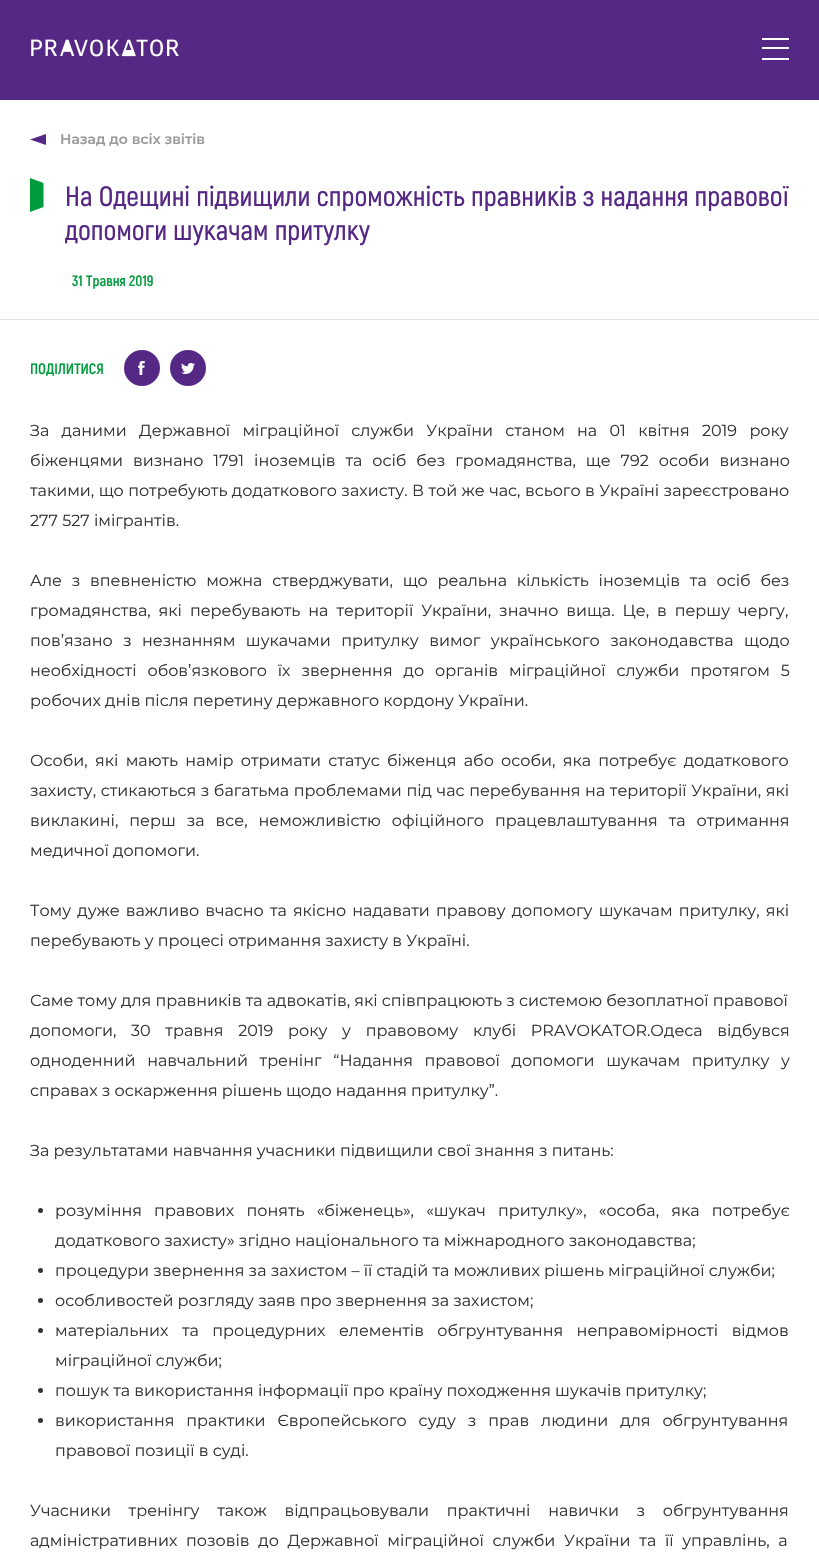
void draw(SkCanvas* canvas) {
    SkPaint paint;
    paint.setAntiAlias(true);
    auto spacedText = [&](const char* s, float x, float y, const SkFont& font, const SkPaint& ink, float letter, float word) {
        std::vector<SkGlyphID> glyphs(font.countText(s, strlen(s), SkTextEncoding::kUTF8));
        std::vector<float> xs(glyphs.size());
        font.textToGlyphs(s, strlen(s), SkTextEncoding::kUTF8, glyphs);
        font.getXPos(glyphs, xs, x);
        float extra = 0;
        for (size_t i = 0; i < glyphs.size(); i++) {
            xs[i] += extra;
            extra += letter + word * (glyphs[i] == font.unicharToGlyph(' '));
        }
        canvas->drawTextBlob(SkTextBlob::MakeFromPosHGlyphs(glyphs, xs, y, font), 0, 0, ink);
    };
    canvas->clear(0xFFFFFFFF);
    paint.setColor(0xFF562885);
    canvas->drawRect(SkRect::MakeXYWH(0, 0, 819, 100), paint);
    canvas->drawImageRect(SkImages::DeferredFromEncodedData(SkData::MakeFromFileName("img1.png")), SkRect::MakeXYWH(31, 39, 148, 18), SkSamplingOptions());
    paint.setColor(0xFFFFFFFF);
    canvas->drawRect(SkRect::MakeXYWH(762, 38, 27, 2), paint);
    canvas->drawRect(SkRect::MakeXYWH(762, 47, 27, 2), paint);
    canvas->drawRect(SkRect::MakeXYWH(762, 58, 27, 2), paint);
    paint.setColor(0xFFE2E2E2);
    canvas->drawRect(SkRect::MakeXYWH(0, 319, 819, 1), paint);
    paint.setColor(0xFF562885);
    canvas->drawPath(SkPathBuilder().moveTo(30, 139.5f).lineTo(46, 145).lineTo(46, 134).close().detach(), paint);
    SkFont font1(fontMgr->matchFamilyStyle("Montserrat", SkFontStyle(600, SkFontStyle::kNormal_Width, SkFontStyle::kUpright_Slant)), 14);
    font1.setSubpixel(true);
    paint.setColor(0xFF999999);
    canvas->drawString("Назад до всіх звітів", 60, 144, font1, paint);
    paint.setColor(0xFF009B3D);
    canvas->drawPath(SkPathBuilder().moveTo(30, 178).lineTo(30, 212).lineTo(43.5f, 207).lineTo(43.5f, 183).close().detach(), paint);
    SkFont font2(fontMgr->matchFamilyStyle("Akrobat", SkFontStyle(600, SkFontStyle::kNormal_Width, SkFontStyle::kUpright_Slant)), 28);
    font2.setSubpixel(true);
    paint.setColor(0xFF562885);
    canvas->drawString("На Одещині підвищили спроможність правників з надання правової", 65, 206, font2, paint);
    canvas->drawString("допомоги шукачам притулку", 65, 240, font2, paint);
    SkFont font3(fontMgr->matchFamilyStyle("Akrobat", SkFontStyle::Bold()), 15);
    font3.setSubpixel(true);
    paint.setColor(0xFF009B3D);
    canvas->drawString("31 Травня 2019", 72, 286, font3, paint);
    canvas->drawString("ПОДІЛИТИСЯ", 30, 374, font3, paint);
    paint.setColor(0xFF562885);
    canvas->drawCircle(142, 368, 18, paint);
    canvas->drawImageRect(SkImages::DeferredFromEncodedData(SkData::MakeFromFileName("img2.png")), SkRect::MakeXYWH(138, 361, 7, 14), SkSamplingOptions());
    canvas->drawCircle(188, 368, 18, paint);
    canvas->drawImageRect(SkImages::DeferredFromEncodedData(SkData::MakeFromFileName("img3.png")), SkRect::MakeXYWH(181, 363, 14, 11), SkSamplingOptions());
    SkFont font4(fontMgr->matchFamilyStyle("Montserrat", SkFontStyle::Normal()), 16);
    font4.setSubpixel(true);
    paint.setColor(0xFF333333);
    spacedText("За даними Державної міграційної служби України станом на 01 квітня 2019 року", 30, 436, font4, paint, 0, 8.1f);
    spacedText("біженцями визнано 1791 іноземців та осіб без громадянства, ще 792 особи визнано", 30, 466, font4, paint, 0, 5.75f);
    spacedText("такими, що потребують додаткового захисту. В той же час, всього в Україні зареєстровано", 30, 496, font4, paint, 0, 0.25f);
    canvas->drawString("277 527 імігрантів.", 30, 526, font4, paint);
    spacedText("Але з впевненістю можна стверджувати, що реальна кількість іноземців та осіб без", 30, 586, font4, paint, 0, 5.6f);
    spacedText("громадянства, які перебувають на території України, значно вища. Це, в першу чергу,", 30, 616, font4, paint, 0, 3.75f);
    spacedText("пов’язано з незнанням шукачами притулку вимог українського законодавства щодо", 30, 646, font4, paint, 0, 6.25f);
    spacedText("необхідності обов’язкового їх звернення до органів міграційної служби протягом 5", 30, 676, font4, paint, 0, 6.75f);
    canvas->drawString("робочих днів після перетину державного кордону України.", 30, 706, font4, paint);
    spacedText("Особи, які мають намір отримати статус біженця або особи, яка потребує додаткового", 30, 766, font4, paint, 0, 3.1f);
    spacedText("захисту, стикаються з багатьма проблемами під час перебування на території України, які", 30, 796, font4, paint, 0, 0.4f);
    spacedText("виклакині, перш за все, неможливістю офіційного працевлаштування та отримання", 30, 826, font4, paint, 0, 6.75f);
    canvas->drawString("медичної допомоги.", 30, 856, font4, paint);
    spacedText("Тому дуже важливо вчасно та якісно надавати правову допомогу шукачам притулку, які", 30, 916, font4, paint, 0, 1.9f);
    canvas->drawString("перебувають у процесі отримання захисту в Україні.", 30, 946, font4, paint);
    canvas->drawString("Саме тому для правників та адвокатів, які співпрацюють з системою безоплатної правової", 30, 1006, font4, paint);
    spacedText("допомоги, 30 травня 2019 року у правовому клубі PRAVOKATOR.Одеса відбувся", 30, 1036, font4, paint, 0, 10.5f);
    spacedText("одноденний навчальний тренінг “Надання правової допомоги шукачам притулку у", 30, 1066, font4, paint, 0, 7.5f);
    canvas->drawString("справах з оскарження рішень щодо надання притулку”.", 30, 1096, font4, paint);
    canvas->drawString("За результатами навчання учасники підвищили свої знання з питань:", 30, 1156, font4, paint);
    canvas->drawCircle(40.5f, 1210.5f, 2.5f, paint);
    spacedText("розуміння правових понять «біженець», «шукач притулку», «особа, яка потребує", 55, 1216, font4, paint, 0, 8);
    canvas->drawString("додаткового захисту» згідно національного та міжнародного законодавства;", 55, 1246, font4, paint);
    canvas->drawCircle(40.5f, 1270.5f, 2.5f, paint);
    canvas->drawString("процедури звернення за захистом – її стадій та можливих рішень міграційної служби;", 55, 1276, font4, paint);
    canvas->drawCircle(40.5f, 1300.5f, 2.5f, paint);
    canvas->drawString("особливостей розгляду заяв про звернення за захистом;", 55, 1306, font4, paint);
    canvas->drawCircle(40.5f, 1330.5f, 2.5f, paint);
    spacedText("матеріальних та процедурних елементів обгрунтування неправомірності відмов", 55, 1336, font4, paint, 0, 9.25f);
    canvas->drawString("міграційної служби;", 55, 1366, font4, paint);
    canvas->drawCircle(40.5f, 1390.5f, 2.5f, paint);
    canvas->drawString("пошук та використання інформації про країну походження шукачів притулку;", 55, 1396, font4, paint);
    canvas->drawCircle(40.5f, 1420.5f, 2.5f, paint);
    spacedText("використання практики Європейського суду з прав людини для обгрунтування", 55, 1426, font4, paint, 0, 7.75f);
    canvas->drawString("правової позиції в суді.", 55, 1456, font4, paint);
    spacedText("Учасники тренінгу також відпрацьовували практичні навички з обгрунтування", 30, 1516, font4, paint, 0, 13.5f);
    spacedText("адміністративних позовів до Державної міграційної служби України та її управлінь, а", 30, 1546, font4, paint, 0, 4.5f);
}
